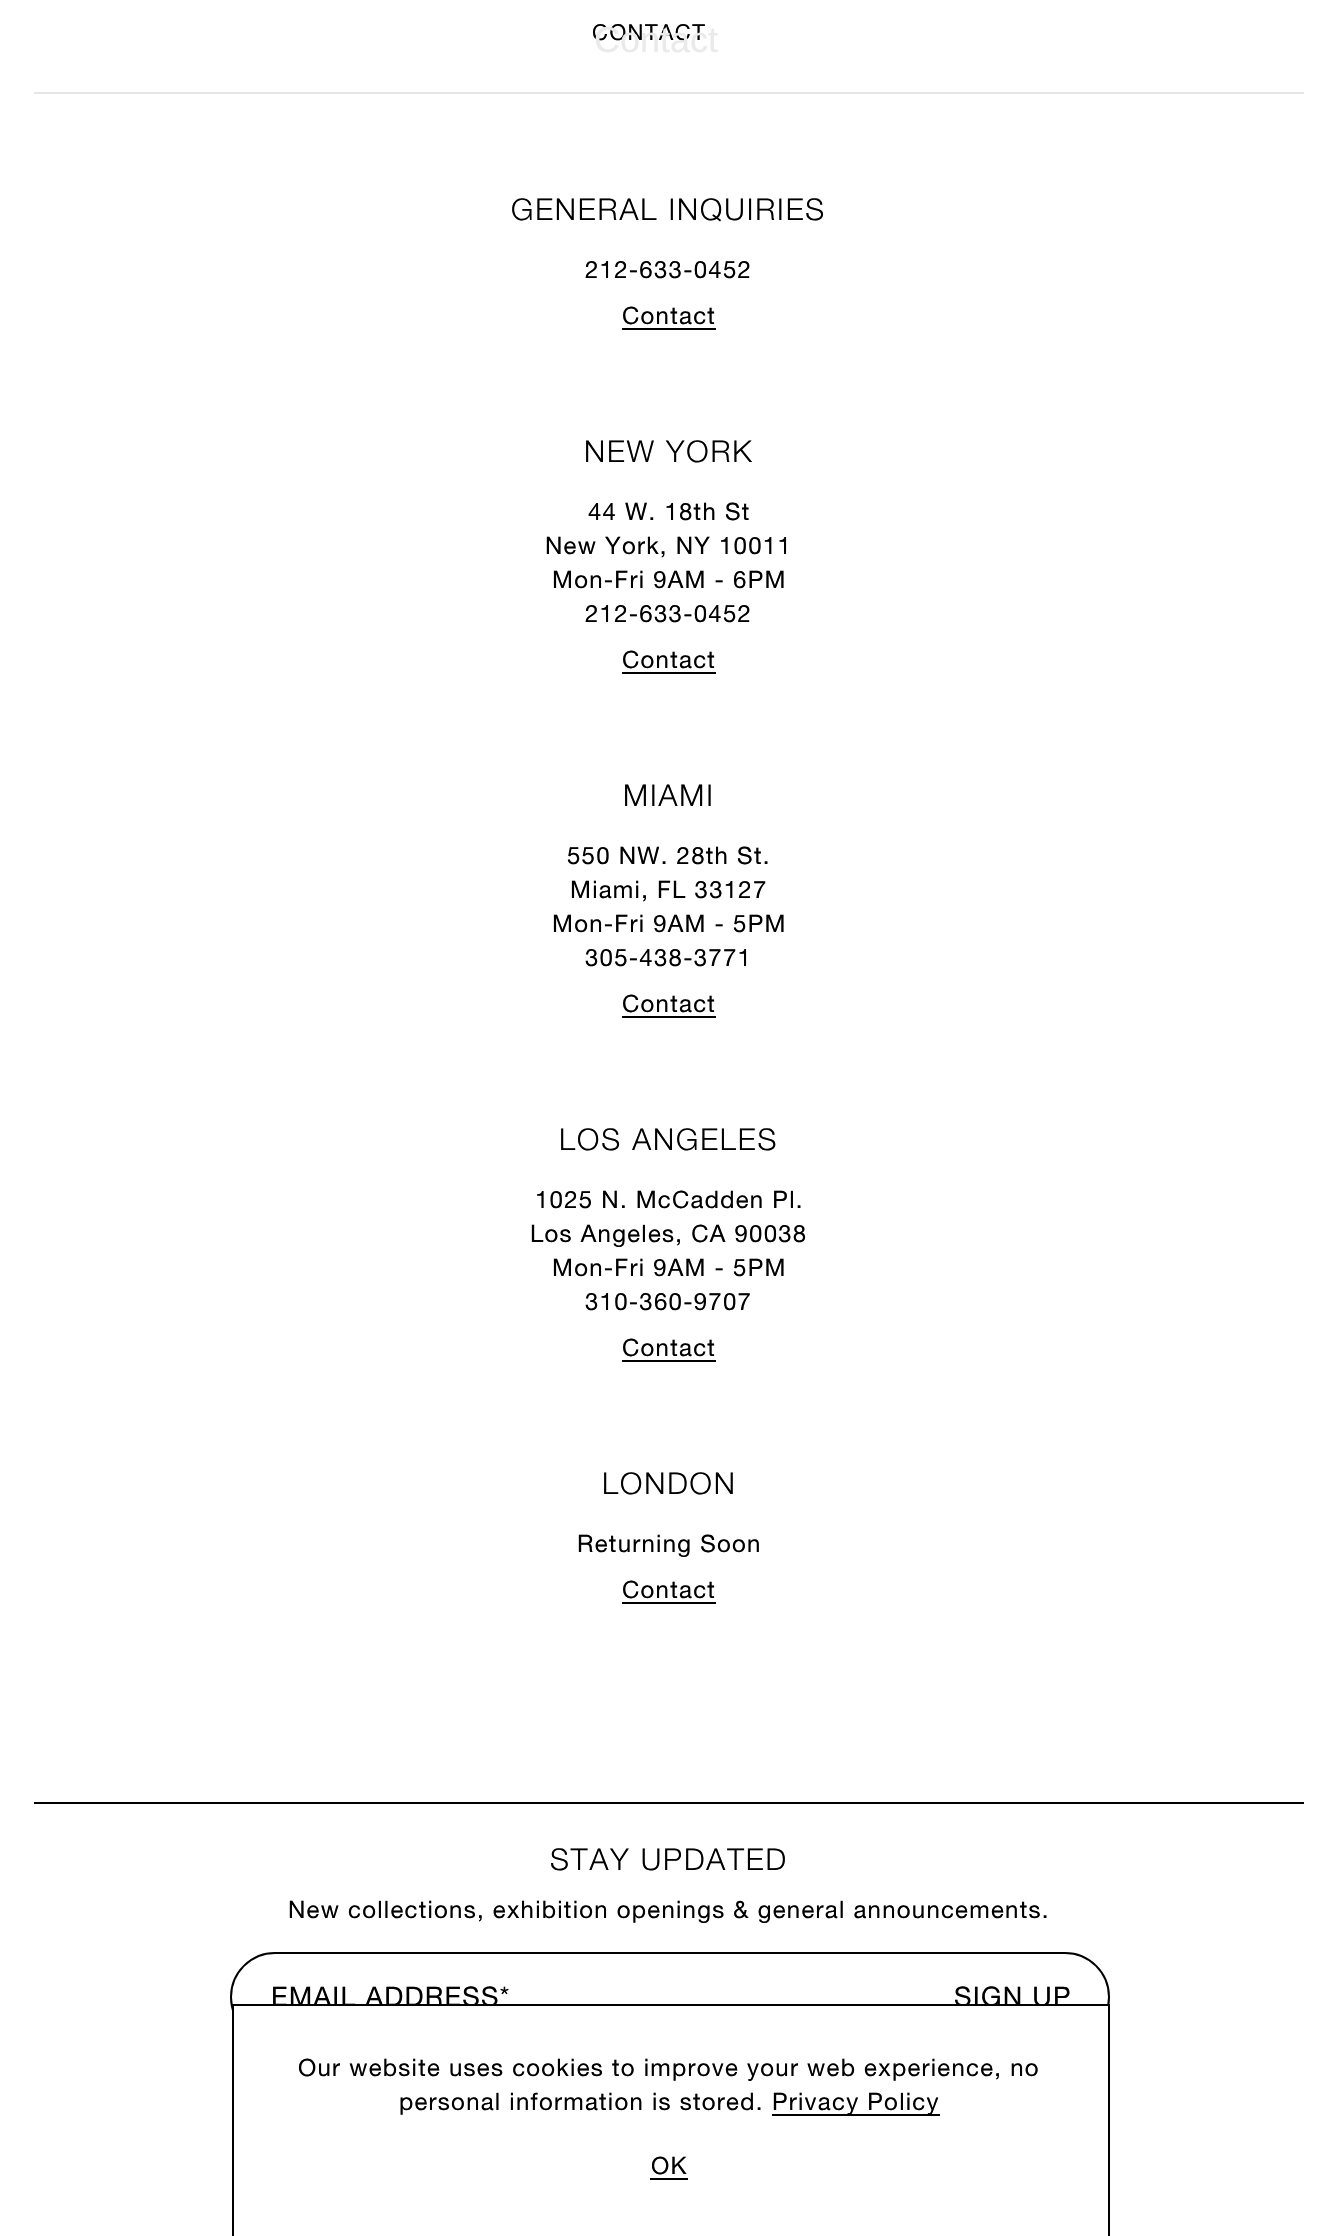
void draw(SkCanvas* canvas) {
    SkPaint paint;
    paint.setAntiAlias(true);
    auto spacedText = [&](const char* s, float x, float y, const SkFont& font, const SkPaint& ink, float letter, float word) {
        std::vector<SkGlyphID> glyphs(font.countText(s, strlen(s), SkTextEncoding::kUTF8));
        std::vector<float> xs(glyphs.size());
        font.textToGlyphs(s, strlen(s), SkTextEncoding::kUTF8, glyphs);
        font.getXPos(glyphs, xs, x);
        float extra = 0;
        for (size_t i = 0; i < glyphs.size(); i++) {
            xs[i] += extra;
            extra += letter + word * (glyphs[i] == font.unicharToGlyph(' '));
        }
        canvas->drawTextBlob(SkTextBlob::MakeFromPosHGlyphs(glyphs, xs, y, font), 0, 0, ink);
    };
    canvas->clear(0xFFFFFFFF);
    paint.setColor(0xFFE6E6E6);
    canvas->drawRect(SkRect::MakeXYWH(34, 92, 1270, 2), paint);
    SkFont font1(fontMgr->matchFamilyStyle("Helvetica Neue", SkFontStyle::Normal()), 22);
    font1.setSubpixel(true);
    paint.setColor(0xFF000000);
    spacedText("CONTACT", 592, 40, font1, paint, 1.5f, 0);
    SkFont font2(fontMgr->matchFamilyStyle("Liberation Sans", SkFontStyle::Normal()), 36);
    font2.setSubpixel(true);
    paint.setColor(0xFFEAEAEA);
    canvas->drawString("Contact", 594, 52, font2, paint);
    SkFont font3(fontMgr->matchFamilyStyle("Helvetica Neue", SkFontStyle(300, SkFontStyle::kNormal_Width, SkFontStyle::kUpright_Slant)), 30);
    font3.setSubpixel(true);
    paint.setColor(0xFF000000);
    spacedText("GENERAL INQUIRIES", 511, 220, font3, paint, 1.9f, 0);
    SkFont font4(fontMgr->matchFamilyStyle("Helvetica Neue", SkFontStyle::Normal()), 24);
    font4.setSubpixel(true);
    spacedText("212-633-0452", 585, 278, font4, paint, 1.25f, 0);
    spacedText("Contact", 622, 324, font4, paint, 1.25f, 0);
    canvas->drawRect(SkRect::MakeXYWH(622, 328, 94, 2), paint);
    spacedText("NEW YORK", 584, 462, font3, paint, 1.9f, 0);
    spacedText("44 W. 18th St", 588, 520, font4, paint, 1.25f, 0);
    spacedText("New York, NY 10011", 545, 554, font4, paint, 1.25f, 0);
    spacedText("Mon-Fri 9AM - 6PM", 552, 588, font4, paint, 1.25f, 0);
    spacedText("212-633-0452", 585, 622, font4, paint, 1.25f, 0);
    spacedText("Contact", 622, 668, font4, paint, 1.25f, 0);
    canvas->drawRect(SkRect::MakeXYWH(622, 672, 94, 2), paint);
    spacedText("MIAMI", 623, 806, font3, paint, 1.9f, 0);
    spacedText("550 NW. 28th St.", 567, 864, font4, paint, 1.25f, 0);
    spacedText("Miami, FL 33127", 570, 898, font4, paint, 1.25f, 0);
    spacedText("Mon-Fri 9AM - 5PM", 552, 932, font4, paint, 1.25f, 0);
    spacedText("305-438-3771", 585, 966, font4, paint, 1.25f, 0);
    spacedText("Contact", 622, 1012, font4, paint, 1.25f, 0);
    canvas->drawRect(SkRect::MakeXYWH(622, 1016, 94, 2), paint);
    spacedText("LOS ANGELES", 559, 1150, font3, paint, 1.9f, 0);
    spacedText("1025 N. McCadden Pl.", 535, 1208, font4, paint, 1.25f, 0);
    spacedText("Los Angeles, CA 90038", 530, 1242, font4, paint, 1.25f, 0);
    spacedText("Mon-Fri 9AM - 5PM", 552, 1276, font4, paint, 1.25f, 0);
    spacedText("310-360-9707", 585, 1310, font4, paint, 1.25f, 0);
    spacedText("Contact", 622, 1356, font4, paint, 1.25f, 0);
    canvas->drawRect(SkRect::MakeXYWH(622, 1360, 94, 2), paint);
    spacedText("LONDON", 602, 1494, font3, paint, 1.9f, 0);
    spacedText("Returning Soon", 577, 1552, font4, paint, 1.25f, 0);
    spacedText("Contact", 622, 1598, font4, paint, 1.25f, 0);
    canvas->drawRect(SkRect::MakeXYWH(622, 1602, 94, 2), paint);
    canvas->drawRect(SkRect::MakeXYWH(34, 1802, 1270, 2), paint);
    spacedText("STAY UPDATED", 550, 1870, font3, paint, 1.9f, 0);
    spacedText("New collections, exhibition openings & general announcements.", 288, 1918, font4, paint, 1.25f, 0);
    paint.setStyle(SkPaint::kStroke_Style);
    paint.setStrokeWidth(2);
    canvas->drawRoundRect(SkRect::MakeXYWH(231, 1953, 878, 88), 44, 44, paint);
    SkFont font5(fontMgr->matchFamilyStyle("Helvetica Neue", SkFontStyle::Normal()), 27);
    font5.setSubpixel(true);
    paint.setStyle(SkPaint::kFill_Style);
    spacedText("EMAIL ADDRESS*", 271, 2006, font5, paint, 1.25f, 0);
    spacedText("SIGN UP", 954, 2006, font5, paint, 1.25f, 0);
    paint.setColor(0xFFFFFFFF);
    canvas->drawRect(SkRect::MakeXYWH(234, 2006, 874, 36), paint);
    paint.setColor(0xFF000000);
    canvas->drawRect(SkRect::MakeXYWH(232, 2004, 878, 2), paint);
    canvas->drawRect(SkRect::MakeXYWH(1108, 2004, 2, 232), paint);
    canvas->drawRect(SkRect::MakeXYWH(232, 2004, 2, 232), paint);
    spacedText("Our website uses cookies to improve your web experience, no", 298, 2076, font4, paint, 1.25f, 0);
    spacedText("personal information is stored.", 399, 2110, font4, paint, 1.25f, 0);
    canvas->drawRect(SkRect::MakeXYWH(772, 2114, 168, 2), paint);
    spacedText("Privacy Policy", 772, 2110, font4, paint, 1.25f, 0);
    spacedText("OK", 651, 2174, font4, paint, 1.25f, 0);
    canvas->drawRect(SkRect::MakeXYWH(650, 2178, 38, 2), paint);
}
